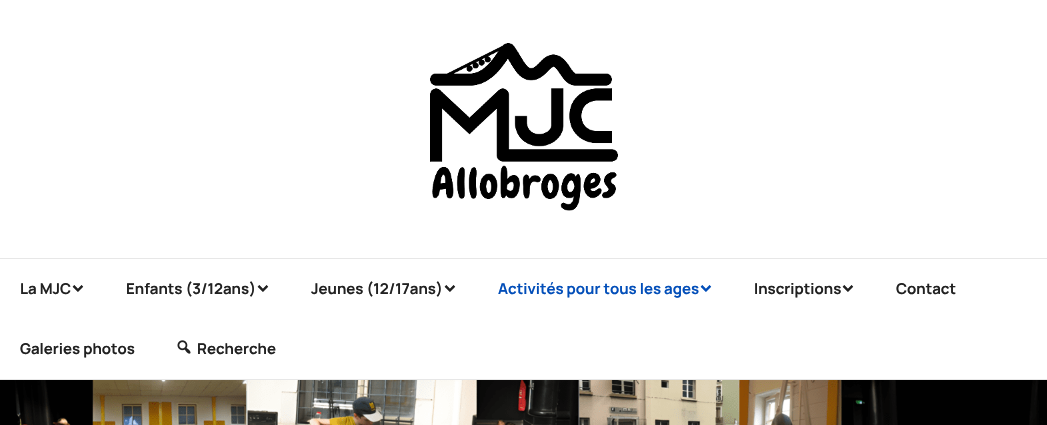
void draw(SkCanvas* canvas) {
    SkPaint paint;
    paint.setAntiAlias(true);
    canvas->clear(0xFFFFFFFF);
    canvas->drawImageRect(SkImages::DeferredFromEncodedData(SkData::MakeFromFileName("img1.png")), SkRect::MakeXYWH(430, 43, 188, 168), SkSamplingOptions());
    paint.setColor(0xFFE7E7E7);
    canvas->drawRect(SkRect::MakeXYWH(0, 258, 1047, 1), paint);
    canvas->drawRect(SkRect::MakeXYWH(0, 379, 1047, 1), paint);
    SkFont font1(fontMgr->matchFamilyStyle("Manrope", SkFontStyle::Bold()), 15);
    font1.setSubpixel(true);
    paint.setColor(0xFF212121);
    canvas->drawString("La MJC", 20, 294, font1, paint);
    SkFont font2(fontMgr->matchFamilyStyle("Manrope", SkFontStyle::Bold()), 22);
    font2.setSubpixel(true);
    canvas->save();
    canvas->rotate(90, 71, 281);
    canvas->drawString("›", 71, 281, font2, paint);
    canvas->restore();
    canvas->drawString("Enfants (3/12ans)", 126, 294, font1, paint);
    canvas->save();
    canvas->rotate(90, 256, 281);
    canvas->drawString("›", 256, 281, font2, paint);
    canvas->restore();
    canvas->drawString("Jeunes (12/17ans)", 311, 294, font1, paint);
    canvas->save();
    canvas->rotate(90, 443, 281);
    canvas->drawString("›", 443, 281, font2, paint);
    canvas->restore();
    paint.setColor(0xFF024EB9);
    canvas->drawString("Activités pour tous les ages", 498, 294, font1, paint);
    canvas->save();
    canvas->rotate(90, 699, 281);
    canvas->drawString("›", 699, 281, font2, paint);
    canvas->restore();
    paint.setColor(0xFF212121);
    canvas->drawString("Inscriptions", 754, 294, font1, paint);
    canvas->save();
    canvas->rotate(90, 841, 281);
    canvas->drawString("›", 841, 281, font2, paint);
    canvas->restore();
    canvas->drawString("Contact", 896, 294, font1, paint);
    canvas->drawString("Galeries photos", 20, 354, font1, paint);
    canvas->drawImageRect(SkImages::DeferredFromEncodedData(SkData::MakeFromFileName("img2.png")), SkRect::MakeXYWH(177, 340, 14, 14), SkSamplingOptions());
    canvas->drawString("Recherche", 197, 354, font1, paint);
    canvas->drawImageRect(SkImages::DeferredFromEncodedData(SkData::MakeFromFileName("img3.png")), SkRect::MakeXYWH(0, 380, 1047, 45), SkSamplingOptions());
}
